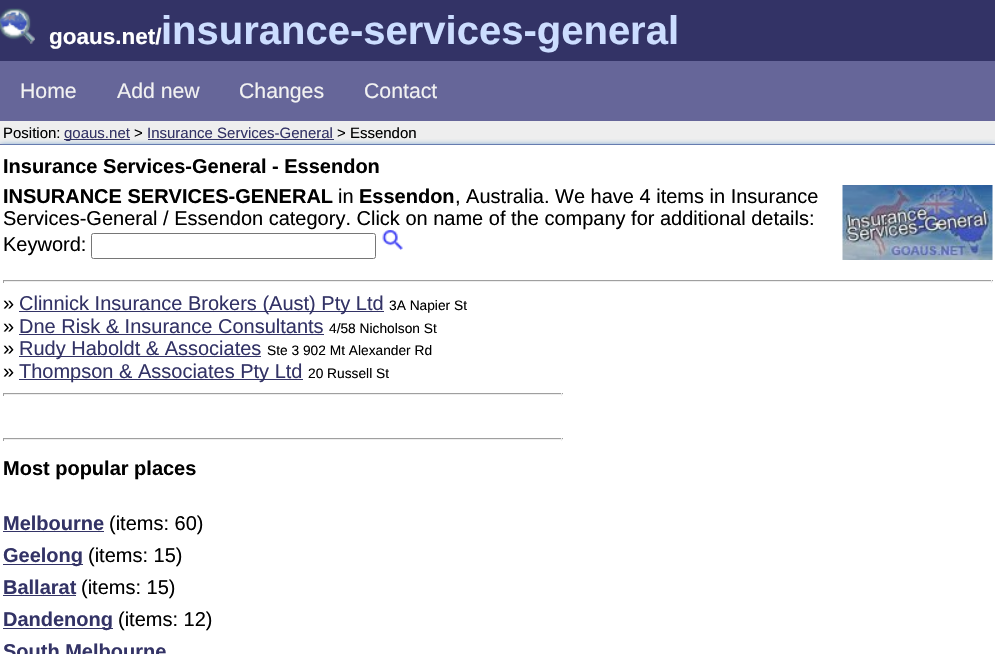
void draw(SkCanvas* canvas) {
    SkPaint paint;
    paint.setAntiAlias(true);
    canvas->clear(0xFFFFFFFF);
    paint.setColor(0xFF333366);
    canvas->drawRect(SkRect::MakeXYWH(0, 0, 995, 61), paint);
    canvas->drawImageRect(SkImages::DeferredFromEncodedData(SkData::MakeFromFileName("img1.png")), SkRect::MakeXYWH(0, 8, 35, 36), SkSamplingOptions());
    SkFont font1(fontMgr->matchFamilyStyle("Liberation Sans", SkFontStyle::Bold()), 22.5f);
    font1.setSubpixel(true);
    paint.setColor(0xFFFFFFFF);
    canvas->drawString("goaus.net/", 49, 44, font1, paint);
    SkFont font2(fontMgr->matchFamilyStyle("Liberation Sans", SkFontStyle::Bold()), 40);
    font2.setSubpixel(true);
    paint.setColor(0xFFCCDDFF);
    canvas->drawString("insurance-services-general", 161, 44, font2, paint);
    paint.setColor(0xFF666699);
    canvas->drawRect(SkRect::MakeXYWH(0, 61, 995, 60), paint);
    SkFont font3(fontMgr->matchFamilyStyle("Liberation Sans", SkFontStyle::Normal()), 21.25f);
    font3.setSubpixel(true);
    paint.setColor(0xFFF2F2F2);
    canvas->drawString("Home", 20, 98, font3, paint);
    canvas->drawString("Add new", 117, 98, font3, paint);
    canvas->drawString("Changes", 239, 98, font3, paint);
    canvas->drawString("Contact", 364, 98, font3, paint);
    paint.setColor(0xFFEEEEEE);
    canvas->drawRect(SkRect::MakeXYWH(0, 121, 995, 23), paint);
    paint.setColor(0xFF666699);
    canvas->drawRect(SkRect::MakeXYWH(0, 144, 995, 1), paint);
    canvas->save();
    canvas->clipRect(SkRect::MakeXYWH(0, 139, 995, 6));
    paint.setColor(0xFF6699CC);
    paint.setMaskFilter(SkMaskFilter::MakeBlur(kNormal_SkBlurStyle, 3));
    canvas->drawRect(SkRect::MakeXYWH(0, 145, 995, 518), paint);
    paint.setMaskFilter(nullptr);
    canvas->restore();
    SkFont font4(fontMgr->matchFamilyStyle("Liberation Sans", SkFontStyle::Normal()), 15);
    font4.setSubpixel(true);
    paint.setColor(0xFF000000);
    canvas->drawString("Position:", 3, 138, font4, paint);
    paint.setColor(0xFF333366);
    canvas->drawRect(SkRect::MakeXYWH(64, 139, 66, 1), paint);
    canvas->drawString("goaus.net", 64, 138, font4, paint);
    paint.setColor(0xFF000000);
    canvas->drawString(">", 134, 138, font4, paint);
    paint.setColor(0xFF333366);
    canvas->drawString("Insurance Services-General", 147, 138, font4, paint);
    canvas->drawRect(SkRect::MakeXYWH(148, 139, 186, 1), paint);
    paint.setColor(0xFF000000);
    canvas->drawString("> Essendon", 337, 138, font4, paint);
    SkFont font5(fontMgr->matchFamilyStyle("Liberation Sans", SkFontStyle::Bold()), 20);
    font5.setSubpixel(true);
    canvas->drawString("Insurance Services-General - Essendon", 3, 173, font5, paint);
    canvas->drawString("INSURANCE SERVICES-GENERAL", 3, 203, font5, paint);
    SkFont font6(fontMgr->matchFamilyStyle("Liberation Sans", SkFontStyle::Normal()), 20);
    font6.setSubpixel(true);
    canvas->drawString("in", 338, 203, font6, paint);
    canvas->drawString("Essendon", 359, 203, font5, paint);
    canvas->drawString(", Australia. We have 4 items in Insurance", 455, 203, font6, paint);
    canvas->drawImageRect(SkImages::DeferredFromEncodedData(SkData::MakeFromFileName("img2.png")), SkRect::MakeXYWH(842, 185, 151, 75), SkSamplingOptions());
    canvas->drawString("Services-General / Essendon category. Click on name of the company for additional details:", 3, 225, font6, paint);
    canvas->drawString("Keyword:", 3, 251, font6, paint);
    paint.setStyle(SkPaint::kStroke_Style);
    paint.setStrokeWidth(1);
    paint.setColor(0xFF767676);
    canvas->drawRoundRect(SkRect::MakeXYWH(91.5f, 233.5f, 284, 25), 2, 2, paint);
    canvas->drawImageRect(SkImages::DeferredFromEncodedData(SkData::MakeFromFileName("img3.png")), SkRect::MakeXYWH(382, 230, 21, 20), SkSamplingOptions());
    paint.setStyle(SkPaint::kFill_Style);
    paint.setColor(0xFF9F9F9F);
    canvas->drawRect(SkRect::MakeXYWH(3, 280, 990, 1), paint);
    paint.setColor(0xFFEEEEEE);
    canvas->drawRect(SkRect::MakeXYWH(991, 280, 1, 3), paint);
    canvas->drawRect(SkRect::MakeXYWH(3, 281, 990, 1), paint);
    paint.setColor(0xFF9F9F9F);
    canvas->drawRect(SkRect::MakeXYWH(3, 280, 1, 3), paint);
    paint.setColor(0xFF000000);
    canvas->drawString("»", 3, 310, font6, paint);
    paint.setColor(0xFF333366);
    canvas->drawRect(SkRect::MakeXYWH(19, 311, 365, 1), paint);
    canvas->drawString("Clinnick Insurance Brokers (Aust) Pty Ltd", 19, 310, font6, paint);
    SkFont font7(fontMgr->matchFamilyStyle("Liberation Sans", SkFontStyle::Normal()), 13.75f);
    font7.setSubpixel(true);
    paint.setColor(0xFF000000);
    canvas->drawString("3A Napier St", 389, 310, font7, paint);
    canvas->drawString("»", 3, 333, font6, paint);
    paint.setColor(0xFF333366);
    canvas->drawString("Dne Risk & Insurance Consultants", 19, 333, font6, paint);
    canvas->drawRect(SkRect::MakeXYWH(19, 334, 305, 1), paint);
    paint.setColor(0xFF000000);
    canvas->drawString("4/58 Nicholson St", 329, 333, font7, paint);
    canvas->drawString("»", 3, 355, font6, paint);
    paint.setColor(0xFF333366);
    canvas->drawRect(SkRect::MakeXYWH(19, 356, 242, 1), paint);
    canvas->drawString("Rudy Haboldt & Associates", 19, 355, font6, paint);
    paint.setColor(0xFF000000);
    canvas->drawString("Ste 3 902 Mt Alexander Rd", 267, 355, font7, paint);
    canvas->drawString("»", 3, 378, font6, paint);
    paint.setColor(0xFF333366);
    canvas->drawRect(SkRect::MakeXYWH(19, 379, 284, 1), paint);
    canvas->drawString("Thompson & Associates Pty Ltd", 19, 378, font6, paint);
    paint.setColor(0xFF000000);
    canvas->drawString("20 Russell St", 308, 378, font7, paint);
    paint.setColor(0xFF9F9F9F);
    canvas->drawRect(SkRect::MakeXYWH(3, 393, 560, 1), paint);
    paint.setColor(0xFFEEEEEE);
    canvas->drawRect(SkRect::MakeXYWH(561, 393, 1, 3), paint);
    canvas->drawRect(SkRect::MakeXYWH(3, 394, 560, 1), paint);
    paint.setColor(0xFF9F9F9F);
    canvas->drawRect(SkRect::MakeXYWH(3, 393, 1, 3), paint);
    canvas->drawRect(SkRect::MakeXYWH(3, 438, 560, 1), paint);
    paint.setColor(0xFFEEEEEE);
    canvas->drawRect(SkRect::MakeXYWH(561, 438, 1, 3), paint);
    canvas->drawRect(SkRect::MakeXYWH(3, 439, 560, 1), paint);
    paint.setColor(0xFF9F9F9F);
    canvas->drawRect(SkRect::MakeXYWH(3, 438, 1, 3), paint);
    paint.setColor(0xFF000000);
    canvas->drawString("Most popular places", 3, 475, font5, paint);
    paint.setColor(0xFF333366);
    canvas->drawString("Melbourne", 3, 530, font5, paint);
    canvas->drawRect(SkRect::MakeXYWH(3, 531, 101, 1), paint);
    paint.setColor(0xFF000000);
    canvas->drawString("(items: 60)", 109, 530, font6, paint);
    paint.setColor(0xFF333366);
    canvas->drawRect(SkRect::MakeXYWH(3, 564, 80, 1), paint);
    canvas->drawString("Geelong", 3, 562, font5, paint);
    paint.setColor(0xFF000000);
    canvas->drawString("(items: 15)", 88, 562, font6, paint);
    paint.setColor(0xFF333366);
    canvas->drawString("Ballarat", 3, 594, font5, paint);
    canvas->drawRect(SkRect::MakeXYWH(3, 595, 73, 1), paint);
    paint.setColor(0xFF000000);
    canvas->drawString("(items: 15)", 81, 594, font6, paint);
    paint.setColor(0xFF333366);
    canvas->drawRect(SkRect::MakeXYWH(3, 628, 110, 1), paint);
    canvas->drawString("Dandenong", 3, 626, font5, paint);
    paint.setColor(0xFF000000);
    canvas->drawString("(items: 12)", 118, 626, font6, paint);
    paint.setColor(0xFF333366);
    canvas->drawString("South Melbourne", 3, 658, font5, paint);
}
